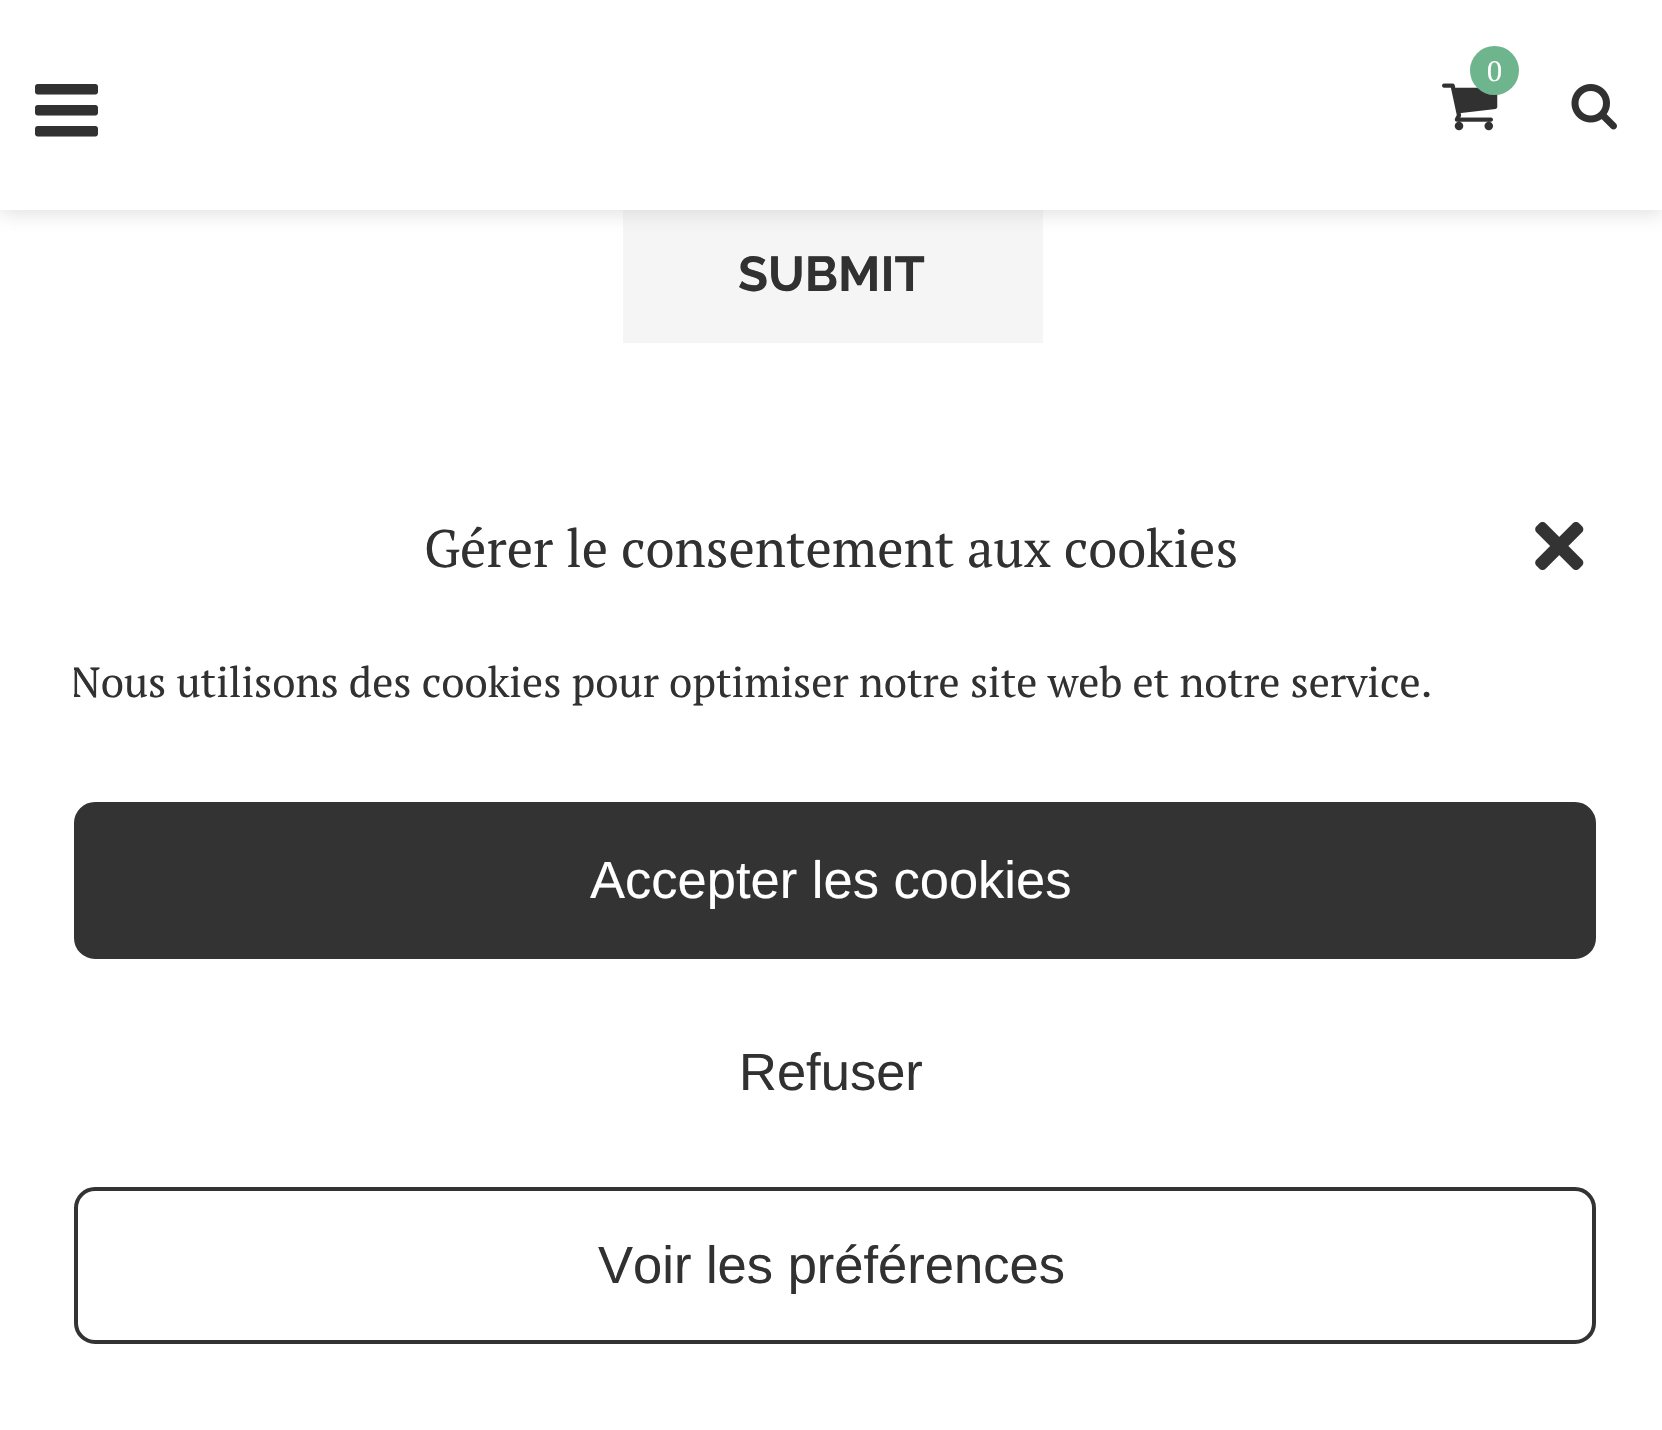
void draw(SkCanvas* canvas) {
    SkPaint paint;
    paint.setAntiAlias(true);
    canvas->clear(0xFFFFFFFF);
    paint.setColor(0xFFF5F5F5);
    canvas->drawRect(SkRect::MakeXYWH(623, 210, 420, 133), paint);
    paint.setColor(0x75BEBEBE);
    paint.setMaskFilter(SkMaskFilter::MakeBlur(kNormal_SkBlurStyle, 9));
    canvas->drawRect(SkRect::MakeXYWH(0, 4, 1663, 210), paint);
    paint.setMaskFilter(nullptr);
    paint.setColor(0xFFFFFFFF);
    canvas->drawRect(SkRect::MakeXYWH(0, 0, 1662, 210), paint);
    canvas->drawImageRect(SkImages::DeferredFromEncodedData(SkData::MakeFromFileName("img1.png")), SkRect::MakeXYWH(1442, 83, 56, 48), SkSamplingOptions());
    paint.setColor(0xFF6EB48C);
    canvas->drawCircle(1494.5f, 70.5f, 24.5f, paint);
    SkFont font1(fontMgr->matchFamilyStyle("PT Serif", SkFontStyle::Normal()), 28);
    font1.setSubpixel(true);
    paint.setColor(0xFFFFFFFF);
    canvas->drawString("0", 1487, 81, font1, paint);
    canvas->drawImageRect(SkImages::DeferredFromEncodedData(SkData::MakeFromFileName("img2.png")), SkRect::MakeXYWH(35, 84, 63, 53), SkSamplingOptions());
    canvas->drawImageRect(SkImages::DeferredFromEncodedData(SkData::MakeFromFileName("img3.png")), SkRect::MakeXYWH(1571, 84, 46, 46), SkSamplingOptions());
    SkFont font2(fontMgr->matchFamilyStyle("Raleway", SkFontStyle::Bold()), 49);
    font2.setSubpixel(true);
    paint.setColor(0xFF313131);
    canvas->drawString("SUBMIT", 738, 291, font2, paint);
    SkFont font3(fontMgr->matchFamilyStyle("PT Serif", SkFontStyle::Normal()), 52.5f);
    font3.setSubpixel(true);
    canvas->drawString("Gérer le consentement aux cookies", 424, 567, font3, paint);
    canvas->drawImageRect(SkImages::DeferredFromEncodedData(SkData::MakeFromFileName("img4.png")), SkRect::MakeXYWH(1535, 521, 49, 50), SkSamplingOptions());
    canvas->save();
    canvas->clipRect(SkRect::MakeXYWH(74, 651, 1522, 81));
    SkFont font4(fontMgr->matchFamilyStyle("PT Serif", SkFontStyle::Normal()), 42);
    font4.setSubpixel(true);
    canvas->drawString("Nous utilisons des cookies pour optimiser notre site web et notre service.", 70, 697, font4, paint);
    canvas->restore();
    paint.setColor(0xFF333333);
    canvas->drawRoundRect(SkRect::MakeXYWH(76, 804, 1518, 153), 19, 19, paint);
    paint.setStyle(SkPaint::kStroke_Style);
    paint.setStrokeWidth(4);
    canvas->drawRoundRect(SkRect::MakeXYWH(76, 804, 1518, 153), 19, 19, paint);
    SkFont font5(fontMgr->matchFamilyStyle("Liberation Sans", SkFontStyle::Normal()), 52.5f);
    font5.setSubpixel(true);
    paint.setStyle(SkPaint::kFill_Style);
    paint.setColor(0xFFFFFFFF);
    canvas->drawString("Accepter les cookies", 590, 898, font5, paint);
    paint.setColor(0xFF313131);
    canvas->drawString("Refuser", 739, 1090, font5, paint);
    paint.setStyle(SkPaint::kStroke_Style);
    paint.setColor(0xFF333333);
    canvas->drawRoundRect(SkRect::MakeXYWH(76, 1189, 1518, 153), 19, 19, paint);
    paint.setStyle(SkPaint::kFill_Style);
    paint.setColor(0xFF313131);
    canvas->drawString("Voir les préférences", 598, 1283, font5, paint);
}
